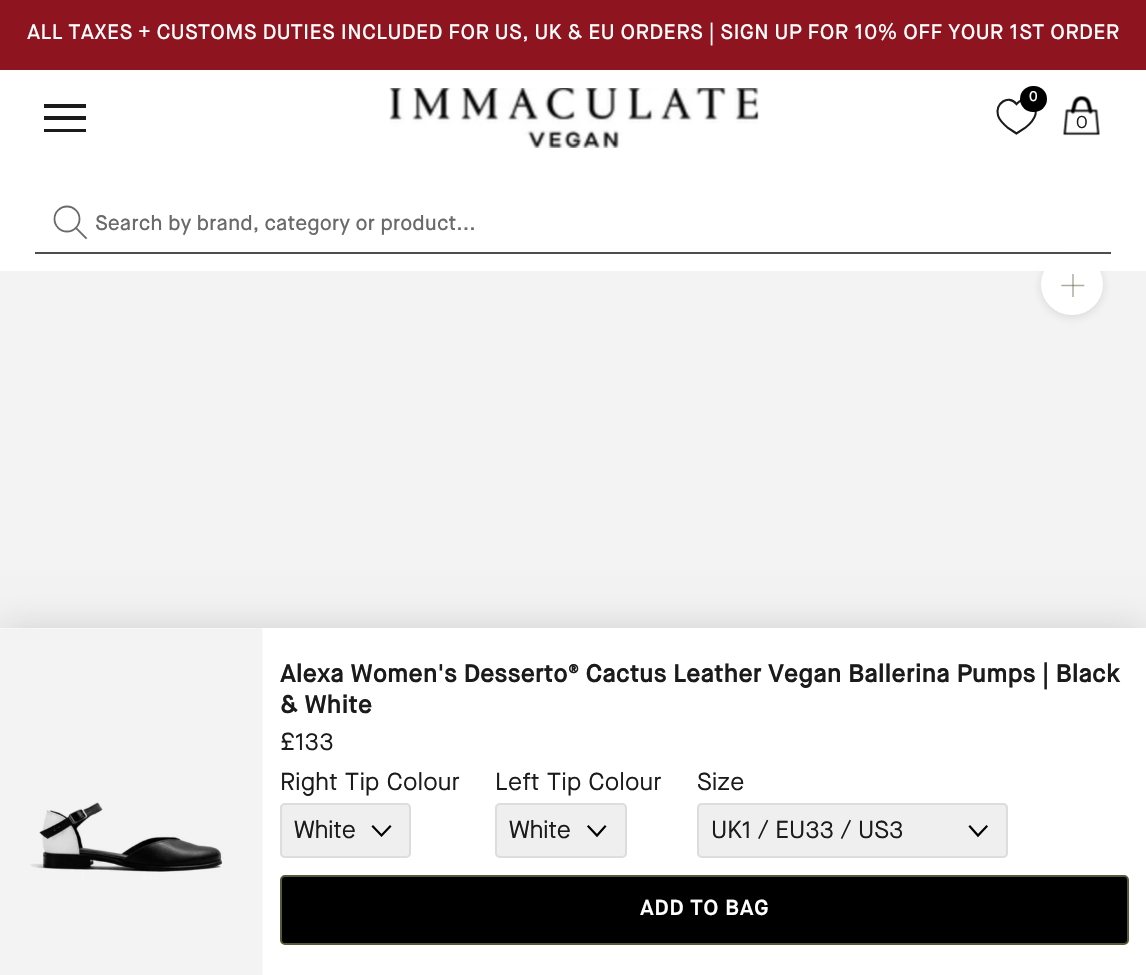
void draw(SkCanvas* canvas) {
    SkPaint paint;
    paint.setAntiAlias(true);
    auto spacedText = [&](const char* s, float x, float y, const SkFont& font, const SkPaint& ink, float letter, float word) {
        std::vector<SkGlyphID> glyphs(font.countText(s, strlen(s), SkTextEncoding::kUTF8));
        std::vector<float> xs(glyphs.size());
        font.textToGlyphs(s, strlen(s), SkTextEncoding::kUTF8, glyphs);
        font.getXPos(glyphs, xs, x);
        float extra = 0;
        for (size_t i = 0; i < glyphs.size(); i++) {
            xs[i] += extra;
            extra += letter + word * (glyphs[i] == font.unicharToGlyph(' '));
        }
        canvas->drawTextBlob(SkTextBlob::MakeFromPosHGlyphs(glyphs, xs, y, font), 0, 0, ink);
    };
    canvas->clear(0xFFFFFFFF);
    paint.setColor(0xFF8E141F);
    canvas->drawRect(SkRect::MakeXYWH(0, 0, 1146, 70), paint);
    SkFont font1(fontMgr->matchFamilyStyle("Maison Neue", SkFontStyle(500, SkFontStyle::kNormal_Width, SkFontStyle::kUpright_Slant)), 21);
    font1.setSubpixel(true);
    paint.setColor(0xFFFFFFFF);
    spacedText("ALL TAXES + CUSTOMS DUTIES INCLUDED FOR US, UK & EU ORDERS | SIGN UP FOR 10% OFF YOUR 1ST ORDER", 27, 39, font1, paint, 0.35f, 0);
    canvas->drawImageRect(SkImages::DeferredFromEncodedData(SkData::MakeFromFileName("img3.png")), SkRect::MakeXYWH(0, 271, 1146, 357), SkSamplingOptions());
    paint.setColor(0x26363636);
    paint.setMaskFilter(SkMaskFilter::MakeBlur(kNormal_SkBlurStyle, 4.5f));
    canvas->drawRoundRect(SkRect::MakeXYWH(1041, 256, 62, 61), 30.5f, 30.5f, paint);
    paint.setMaskFilter(nullptr);
    paint.setColor(0xFFFFFFFF);
    canvas->drawRoundRect(SkRect::MakeXYWH(1041, 254, 62, 61), 30.5f, 30.5f, paint);
    canvas->drawRect(SkRect::MakeXYWH(1039, 250, 66, 21), paint);
    canvas->drawImageRect(SkImages::DeferredFromEncodedData(SkData::MakeFromFileName("img1.png")), SkRect::MakeXYWH(389, 88, 370, 60), SkSamplingOptions());
    paint.setStyle(SkPaint::kStroke_Style);
    paint.setStrokeWidth(2.1f);
    paint.setColor(0xFF1C1B1B);
    canvas->drawPath(SkPathBuilder().moveTo(1016.5f, 133.5f).lineTo(1008, 128).cubicTo(1004.5f, 125, 999.5f, 120.5f, 998, 115.5f).cubicTo(994.5f, 103.5f, 1008.5f, 94, 1016.5f, 104).cubicTo(1024, 94.5f, 1038.5f, 102.5f, 1035.5f, 114.5f).cubicTo(1034, 120, 1029.5f, 124.5f, 1025, 128).close().detach(), paint);
    paint.setStyle(SkPaint::kFill_Style);
    paint.setColor(0xFF000000);
    canvas->drawRoundRect(SkRect::MakeXYWH(1020, 86, 27, 26), 13, 13, paint);
    SkFont font2(fontMgr->matchFamilyStyle("Maison Neue", SkFontStyle(500, SkFontStyle::kNormal_Width, SkFontStyle::kUpright_Slant)), 14);
    font2.setSubpixel(true);
    paint.setColor(0xFFFFFFFF);
    spacedText("0", 1029, 101, font2, paint, 0.35f, 0);
    canvas->drawImageRect(SkImages::DeferredFromEncodedData(SkData::MakeFromFileName("img2.png")), SkRect::MakeXYWH(1063, 95, 37, 41), SkSamplingOptions());
    SkFont font3(fontMgr->matchFamilyStyle("Maison Neue", SkFontStyle::Normal()), 18);
    font3.setSubpixel(true);
    paint.setColor(0xFF1C1B1B);
    spacedText("0", 1076, 128, font3, paint, 0.35f, 0);
    canvas->drawPath(SkPathBuilder().moveTo(44, 132).lineTo(44, 129).lineTo(86, 129).lineTo(86, 132).close().moveTo(44, 116).lineTo(86, 116).lineTo(86, 120).lineTo(44, 120).close().moveTo(44, 104).lineTo(86, 104).lineTo(86, 108).lineTo(44, 108).close().detach(), paint);
    paint.setStyle(SkPaint::kStroke_Style);
    paint.setStrokeWidth(1.8f);
    paint.setStrokeCap(SkPaint::kSquare_Cap);
    paint.setColor(0xFF6A6A6A);
    canvas->drawPath(SkPathBuilder().moveTo(86, 238).lineTo(76, 228).detach(), paint);
    paint.setStrokeCap(SkPaint::kButt_Cap);
    canvas->drawCircle(67, 219, 12.5f, paint);
    paint.setStyle(SkPaint::kFill_Style);
    paint.setColor(0xFF4D4D4D);
    canvas->drawRect(SkRect::MakeXYWH(35, 252, 1076, 2), paint);
    canvas->save();
    canvas->clipRect(SkRect::MakeXYWH(95, 215, 1006, 21));
    paint.setColor(0xFF6A6A6A);
    canvas->drawString("Search by brand, category or product...", 95, 230, font1, paint);
    canvas->restore();
    paint.setColor(0xFFBFC2B4);
    canvas->drawRect(SkRect::MakeXYWH(1072, 274, 2, 23), paint);
    paint.setStyle(SkPaint::kStroke_Style);
    paint.setStrokeWidth(1.5f);
    paint.setStrokeCap(SkPaint::kSquare_Cap);
    paint.setColor(0x80555B36);
    canvas->drawPath(SkPathBuilder().moveTo(1062, 285.5f).lineTo(1083.5f, 285.5f).detach(), paint);
    paint.setStyle(SkPaint::kFill_Style);
    paint.setColor(0x26000000);
    paint.setMaskFilter(SkMaskFilter::MakeBlur(kNormal_SkBlurStyle, 17.5f));
    canvas->drawRect(SkRect::MakeXYWH(0, 628, 1146, 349), paint);
    paint.setMaskFilter(nullptr);
    paint.setColor(0xFFFFFFFF);
    canvas->drawRect(SkRect::MakeXYWH(0, 628, 1146, 347), paint);
    canvas->drawImageRect(SkImages::DeferredFromEncodedData(SkData::MakeFromFileName("img4.png")), SkRect::MakeXYWH(0, 628, 263, 347), SkSamplingOptions());
    SkFont font4(fontMgr->matchFamilyStyle("Maison Neue", SkFontStyle::Bold()), 24.5f);
    font4.setSubpixel(true);
    paint.setColor(0xFF1C1B1B);
    spacedText("Alexa Women's Desserto® Cactus Leather Vegan Ballerina Pumps | Black", 280, 682, font4, paint, 0.35f, 0);
    spacedText("& White", 280, 713, font4, paint, 0.35f, 0);
    SkFont font5(fontMgr->matchFamilyStyle("Maison Neue", SkFontStyle::Normal()), 24.5f);
    font5.setSubpixel(true);
    spacedText("£133", 280, 750, font5, paint, 0.35f, 0);
    spacedText("Right Tip Colour", 280, 790, font5, paint, 0.35f, 0);
    paint.setColor(0xFFEFEFEF);
    canvas->drawRoundRect(SkRect::MakeXYWH(280, 803, 131, 55), 5, 5, paint);
    paint.setStyle(SkPaint::kStroke_Style);
    paint.setStrokeWidth(2.2f);
    paint.setColor(0xFF000000);
    canvas->drawPath(SkPathBuilder().moveTo(390, 826.5f).lineTo(381.5f, 835.5f).lineTo(373, 826.5f).detach(), paint);
    paint.setStrokeWidth(2);
    paint.setStrokeCap(SkPaint::kButt_Cap);
    paint.setColor(0xFFDDDDDD);
    canvas->drawRoundRect(SkRect::MakeXYWH(281, 804, 129, 53), 4, 4, paint);
    paint.setStyle(SkPaint::kFill_Style);
    paint.setColor(0xFF1C1B1B);
    canvas->drawString("White", 294, 838, font5, paint);
    spacedText("Left Tip Colour", 495, 790, font5, paint, 0.35f, 0);
    paint.setColor(0xFFEFEFEF);
    canvas->drawRoundRect(SkRect::MakeXYWH(495, 803, 132, 55), 5, 5, paint);
    paint.setStyle(SkPaint::kStroke_Style);
    paint.setStrokeWidth(2.2f);
    paint.setStrokeCap(SkPaint::kSquare_Cap);
    paint.setColor(0xFF000000);
    canvas->drawPath(SkPathBuilder().moveTo(605, 826.5f).lineTo(597, 835.5f).lineTo(588.5f, 826.5f).detach(), paint);
    paint.setStrokeWidth(2);
    paint.setStrokeCap(SkPaint::kButt_Cap);
    paint.setColor(0xFFDDDDDD);
    canvas->drawRoundRect(SkRect::MakeXYWH(496, 804, 130, 53), 4, 4, paint);
    paint.setStyle(SkPaint::kFill_Style);
    paint.setColor(0xFF1C1B1B);
    canvas->drawString("White", 509, 838, font5, paint);
    spacedText("Size", 697, 790, font5, paint, 0.35f, 0);
    paint.setColor(0xFFEFEFEF);
    canvas->drawRoundRect(SkRect::MakeXYWH(697, 803, 311, 55), 5, 5, paint);
    paint.setStyle(SkPaint::kStroke_Style);
    paint.setStrokeWidth(2.2f);
    paint.setStrokeCap(SkPaint::kSquare_Cap);
    paint.setColor(0xFF000000);
    canvas->drawPath(SkPathBuilder().moveTo(986.5f, 826.5f).lineTo(978, 835.5f).lineTo(970, 826.5f).detach(), paint);
    paint.setStrokeWidth(2);
    paint.setStrokeCap(SkPaint::kButt_Cap);
    paint.setColor(0xFFDDDDDD);
    canvas->drawRoundRect(SkRect::MakeXYWH(698, 804, 309, 53), 4, 4, paint);
    paint.setStyle(SkPaint::kFill_Style);
    paint.setColor(0xFF1C1B1B);
    canvas->drawString("UK1 / EU33 / US3", 711, 838, font5, paint);
    paint.setColor(0xFF000000);
    canvas->drawRoundRect(SkRect::MakeXYWH(281, 876, 847, 68), 4, 4, paint);
    paint.setStyle(SkPaint::kStroke_Style);
    paint.setColor(0xFF555B36);
    canvas->drawRoundRect(SkRect::MakeXYWH(281, 876, 847, 68), 4, 4, paint);
    paint.setStyle(SkPaint::kFill_Style);
    paint.setColor(0xFF000000);
    canvas->drawRoundRect(SkRect::MakeXYWH(282, 877, 845, 66), 5, 5, paint);
    SkFont font6(fontMgr->matchFamilyStyle("Maison Neue", SkFontStyle::Bold()), 21);
    font6.setSubpixel(true);
    paint.setColor(0xFFFFFFFF);
    spacedText("ADD TO BAG", 640, 915, font6, paint, 1, 0);
}
